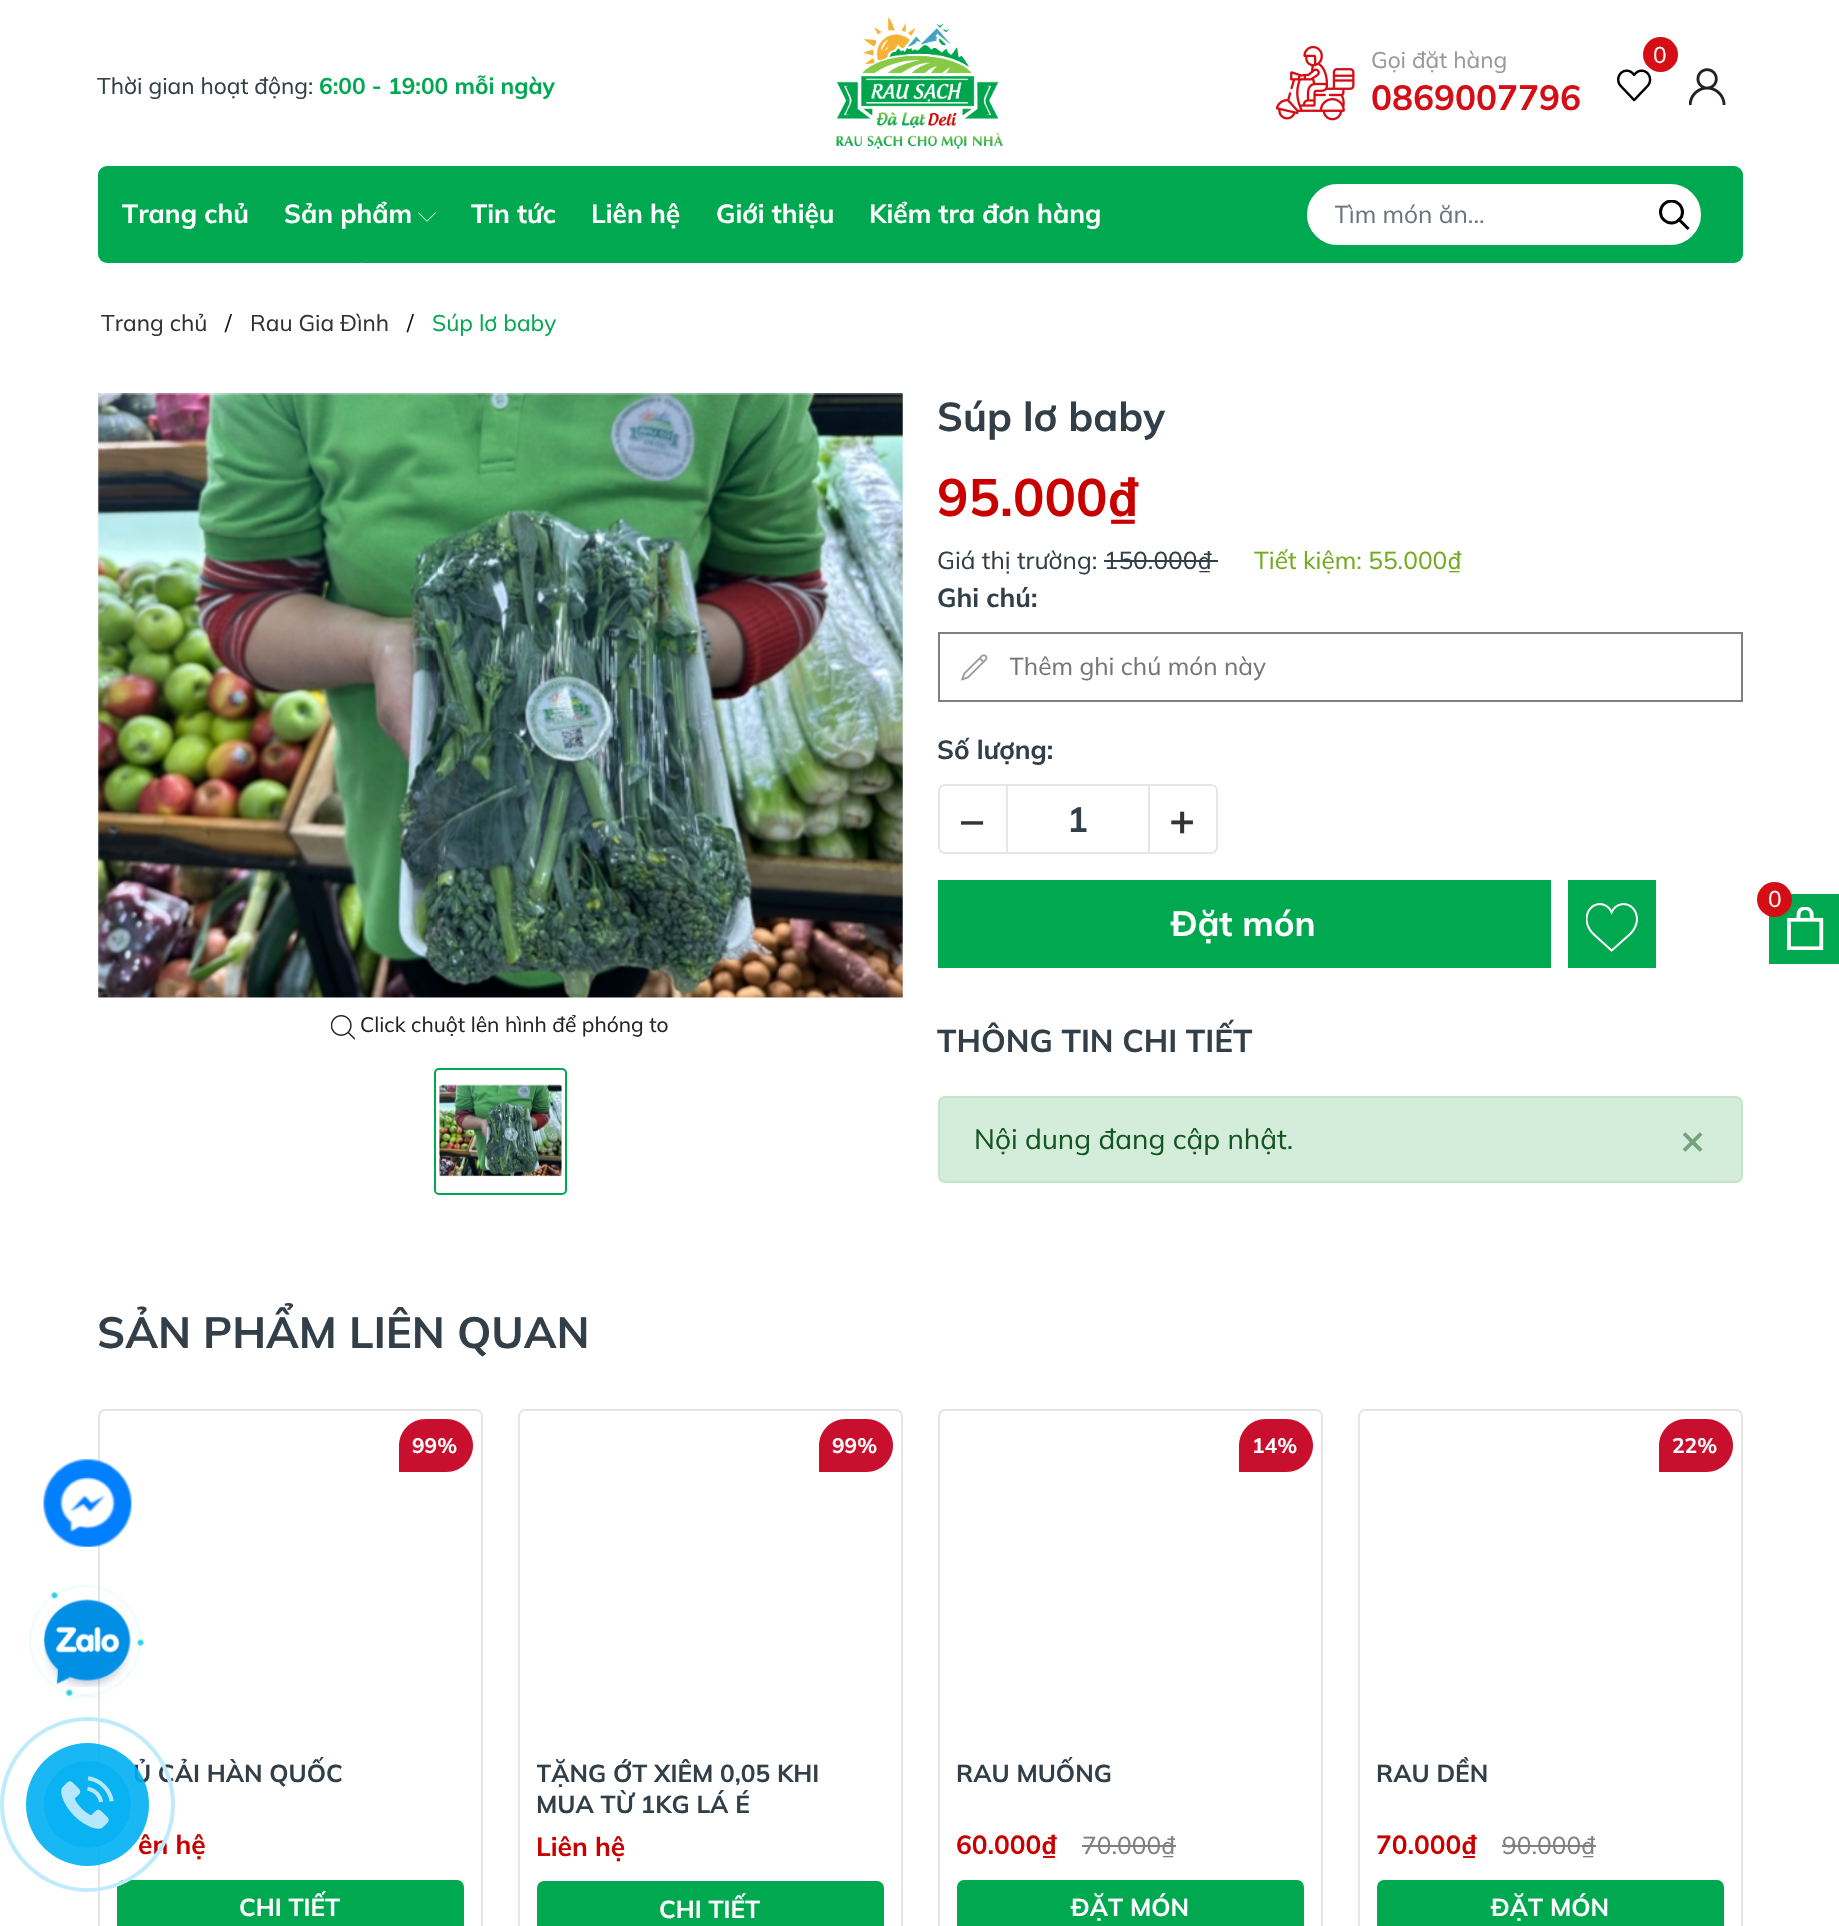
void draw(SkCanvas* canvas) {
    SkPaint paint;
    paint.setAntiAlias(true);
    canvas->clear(0xFFFFFFFF);
    SkFont font1(fontMgr->matchFamilyStyle("Mulish", SkFontStyle::Normal()), 22.75f);
    font1.setSubpixel(true);
    paint.setColor(0xFF333F48);
    canvas->drawString("Thời gian hoạt động:", 97, 94, font1, paint);
    SkFont font2(fontMgr->matchFamilyStyle("Mulish", SkFontStyle::Bold()), 22.75f);
    font2.setSubpixel(true);
    paint.setColor(0xFF00A850);
    canvas->drawString("6:00 - 19:00 mỗi ngày", 319, 94, font2, paint);
    canvas->drawImageRect(SkImages::DeferredFromEncodedData(SkData::MakeFromFileName("img1.png")), SkRect::MakeXYWH(836, 17, 167, 132), SkSamplingOptions());
    canvas->drawImageRect(SkImages::DeferredFromEncodedData(SkData::MakeFromFileName("img2.png")), SkRect::MakeXYWH(1276, 45, 79, 76), SkSamplingOptions());
    paint.setColor(0xFF999999);
    canvas->drawString("Gọi đặt hàng", 1371, 68, font1, paint);
    SkFont font3(fontMgr->matchFamilyStyle("Mulish", SkFontStyle::Bold()), 35);
    font3.setSubpixel(true);
    paint.setColor(0xFFD50E15);
    canvas->drawString("0869007796", 1371, 110, font3, paint);
    canvas->drawImageRect(SkImages::DeferredFromEncodedData(SkData::MakeFromFileName("img3.png")), SkRect::MakeXYWH(1617, 69, 35, 33), SkSamplingOptions());
    canvas->drawCircle(1660.5f, 54.5f, 17.5f, paint);
    paint.setColor(0xFFFFFFFF);
    canvas->drawString("0", 1653, 63, font1, paint);
    canvas->drawImageRect(SkImages::DeferredFromEncodedData(SkData::MakeFromFileName("img4.png")), SkRect::MakeXYWH(1689, 68, 37, 37), SkSamplingOptions());
    paint.setColor(0xFF00A850);
    canvas->drawRoundRect(SkRect::MakeXYWH(98, 166, 1645, 97), 9, 9, paint);
    SkFont font4(fontMgr->matchFamilyStyle("Mulish", SkFontStyle::Bold()), 26.25f);
    font4.setSubpixel(true);
    paint.setColor(0xFFFFFFFF);
    canvas->drawString("Trang chủ", 122, 223, font4, paint);
    canvas->drawString("Sản phẩm", 284, 223, font4, paint);
    canvas->drawImageRect(SkImages::DeferredFromEncodedData(SkData::MakeFromFileName("img5.png")), SkRect::MakeXYWH(418, 212, 18, 10), SkSamplingOptions());
    canvas->drawPath(SkPathBuilder().moveTo(380, 283.5f).lineTo(341, 283.5f).lineTo(360.5f, 262.5f).close().detach(), paint);
    canvas->drawString("Tin tức", 471, 223, font4, paint);
    canvas->drawString("Liên hệ", 591, 223, font4, paint);
    canvas->drawString("Giới thiệu", 716, 223, font4, paint);
    canvas->drawString("Kiểm tra đơn hàng", 869, 223, font4, paint);
    canvas->drawRoundRect(SkRect::MakeXYWH(1308, 185, 392, 59), 29.5f, 29.5f, paint);
    paint.setStyle(SkPaint::kStroke_Style);
    paint.setStrokeWidth(2);
    canvas->drawRoundRect(SkRect::MakeXYWH(1308, 185, 392, 59), 29.5f, 29.5f, paint);
    canvas->save();
    canvas->clipRect(SkRect::MakeXYWH(1335, 200, 312, 31));
    SkFont font5(fontMgr->matchFamilyStyle("Mulish", SkFontStyle::Normal()), 24.5f);
    font5.setSubpixel(true);
    paint.setStyle(SkPaint::kFill_Style);
    paint.setColor(0xFF6C757D);
    canvas->drawString("Tìm món ăn...", 1334, 223, font5, paint);
    canvas->restore();
    paint.setStyle(SkPaint::kStroke_Style);
    paint.setStrokeWidth(3);
    paint.setStrokeCap(SkPaint::kSquare_Cap);
    paint.setColor(0xFF000000);
    canvas->drawPath(SkPathBuilder().moveTo(1687.5f, 228).lineTo(1679, 219.5f).detach(), paint);
    canvas->save();
    canvas->clipRect(SkRect::MakeXYWH(1659, 200, 32, 31));
    paint.setStrokeCap(SkPaint::kButt_Cap);
    canvas->drawCircle(1671.5f, 212, 11, paint);
    canvas->restore();
    paint.setStyle(SkPaint::kFill_Style);
    paint.setColor(0xFF333333);
    canvas->drawString("Trang chủ", 101, 331, font1, paint);
    paint.setColor(0xFF111111);
    canvas->drawString("/", 225, 331, font1, paint);
    paint.setColor(0xFF333333);
    canvas->drawString("Rau Gia Đình", 250, 331, font1, paint);
    paint.setColor(0xFF111111);
    canvas->drawString("/", 407, 331, font1, paint);
    paint.setColor(0xFF00A850);
    canvas->drawString("Súp lơ baby", 432, 331, font1, paint);
    canvas->drawImageRect(SkImages::DeferredFromEncodedData(SkData::MakeFromFileName("img6.png")), SkRect::MakeXYWH(98, 393, 805, 605), SkSamplingOptions());
    canvas->drawImageRect(SkImages::DeferredFromEncodedData(SkData::MakeFromFileName("img7.png")), SkRect::MakeXYWH(331, 1015, 24, 25), SkSamplingOptions());
    SkFont font6(fontMgr->matchFamilyStyle("Mulish", SkFontStyle::Normal()), 21);
    font6.setSubpixel(true);
    paint.setColor(0xFF242424);
    canvas->drawString("Click chuột lên hình để phóng to", 360, 1032, font6, paint);
    paint.setStyle(SkPaint::kStroke_Style);
    paint.setStrokeWidth(2);
    paint.setColor(0xFF00A850);
    canvas->drawRoundRect(SkRect::MakeXYWH(435, 1069, 131, 125), 4, 4, paint);
    canvas->drawImageRect(SkImages::DeferredFromEncodedData(SkData::MakeFromFileName("img8.png")), SkRect::MakeXYWH(439, 1084, 123, 93), SkSamplingOptions());
    SkFont font7(fontMgr->matchFamilyStyle("Mulish", SkFontStyle::Bold()), 40.25f);
    font7.setSubpixel(true);
    paint.setStyle(SkPaint::kFill_Style);
    paint.setColor(0xFF333F48);
    canvas->drawString("Súp lơ baby", 937, 431, font7, paint);
    SkFont font8(fontMgr->matchFamilyStyle("Mulish", SkFontStyle::Bold()), 52.5f);
    font8.setSubpixel(true);
    paint.setColor(0xFFC90000);
    canvas->drawString("95.000₫", 937, 516, font8, paint);
    paint.setColor(0xFF333F48);
    canvas->drawString("Giá thị trường: 150.000₫", 937, 569, font5, paint);
    canvas->drawRect(SkRect::MakeXYWH(1104, 560, 114, 2), paint);
    paint.setColor(0xFF73A91D);
    canvas->drawString("Tiết kiệm: 55.000₫", 1254, 569, font5, paint);
    paint.setColor(0xFF333F48);
    canvas->drawString("Ghi chú:", 937, 607, font4, paint);
    paint.setStyle(SkPaint::kStroke_Style);
    paint.setColor(0xFF7F7F7F);
    canvas->drawRect(SkRect::MakeXYWH(939, 633, 803, 68), paint);
    canvas->drawImageRect(SkImages::DeferredFromEncodedData(SkData::MakeFromFileName("img9.png")), SkRect::MakeXYWH(960, 654, 28, 27), SkSamplingOptions());
    canvas->save();
    canvas->clipRect(SkRect::MakeXYWH(1010, 651, 714, 32));
    paint.setStyle(SkPaint::kFill_Style);
    paint.setColor(0xFF757575);
    canvas->drawString("Thêm ghi chú món này", 1009, 675, font5, paint);
    canvas->restore();
    paint.setColor(0xFF333F48);
    canvas->drawString("Số lượng:", 937, 759, font4, paint);
    paint.setStyle(SkPaint::kStroke_Style);
    paint.setColor(0xFFE6E6E6);
    canvas->drawPath(SkPathBuilder().moveTo(945, 785).lineTo(1007, 785).lineTo(1007, 853).lineTo(945, 853).cubicTo(941.5f, 853, 939, 850.5f, 939, 847).lineTo(939, 791).cubicTo(939, 787.5f, 941.5f, 785, 945, 785).close().detach(), paint);
    SkFont font9(fontMgr->matchFamilyStyle("Mulish", SkFontStyle::Bold()), 43.75f);
    font9.setSubpixel(true);
    paint.setStyle(SkPaint::kFill_Style);
    paint.setColor(0xFF333333);
    canvas->drawString("–", 961, 835, font9, paint);
    paint.setColor(0xFFE6E6E6);
    canvas->drawRect(SkRect::MakeXYWH(1008, 784, 140, 2), paint);
    canvas->drawRect(SkRect::MakeXYWH(1008, 852, 140, 2), paint);
    paint.setColor(0xFF333F48);
    canvas->drawString("1", 1067, 832, font3, paint);
    paint.setStyle(SkPaint::kStroke_Style);
    paint.setColor(0xFFE6E6E6);
    canvas->drawPath(SkPathBuilder().moveTo(1149, 785).lineTo(1211, 785).cubicTo(1214.5f, 785, 1217, 787.5f, 1217, 791).lineTo(1217, 847).cubicTo(1217, 850.5f, 1214.5f, 853, 1211, 853).lineTo(1149, 853).close().detach(), paint);
    paint.setStyle(SkPaint::kFill_Style);
    paint.setColor(0xFF333333);
    canvas->drawString("+", 1169, 835, font9, paint);
    paint.setColor(0xFF00A850);
    canvas->drawRect(SkRect::MakeXYWH(938, 880, 613, 88), paint);
    paint.setColor(0xFFFFFFFF);
    canvas->drawString("Đặt món", 1171, 936, font3, paint);
    paint.setColor(0xFF00A850);
    canvas->drawRect(SkRect::MakeXYWH(1568, 880, 88, 88), paint);
    canvas->drawImageRect(SkImages::DeferredFromEncodedData(SkData::MakeFromFileName("img10.png")), SkRect::MakeXYWH(1586, 903, 52, 49), SkSamplingOptions());
    SkFont font10(fontMgr->matchFamilyStyle("Mulish", SkFontStyle::Bold()), 31.5f);
    font10.setSubpixel(true);
    paint.setColor(0xFF333F48);
    canvas->drawString("THÔNG TIN CHI TIẾT", 937, 1052, font10, paint);
    paint.setColor(0xFFD4EDDA);
    canvas->drawRoundRect(SkRect::MakeXYWH(939, 1097, 803, 85), 6, 6, paint);
    paint.setStyle(SkPaint::kStroke_Style);
    paint.setColor(0xFFC3E6CB);
    canvas->drawRoundRect(SkRect::MakeXYWH(939, 1097, 803, 85), 6, 6, paint);
    SkFont font11(fontMgr->matchFamilyStyle("Mulish", SkFontStyle::Normal()), 28);
    font11.setSubpixel(true);
    paint.setStyle(SkPaint::kFill_Style);
    paint.setColor(0xFF155724);
    canvas->drawString("Nội dung đang cập nhật.", 974, 1149, font11, paint);
    SkFont font12(fontMgr->matchFamilyStyle("Mulish", SkFontStyle::Bold()), 42);
    font12.setSubpixel(true);
    paint.setColor(0xFF75A27F);
    canvas->drawString("×", 1680, 1154, font12, paint);
    paint.setColor(0xFF333F48);
    canvas->drawString("SẢN PHẨM LIÊN QUAN", 97, 1348, font9, paint);
    paint.setStyle(SkPaint::kStroke_Style);
    paint.setColor(0xFFE5E5E5);
    canvas->drawRoundRect(SkRect::MakeXYWH(99, 1410, 383, 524), 6, 6, paint);
    paint.setStyle(SkPaint::kFill_Style);
    paint.setColor(0xFFC8102E);
    canvas->drawPath(SkPathBuilder().moveTo(425.5f, 1419).lineTo(446.5f, 1419).cubicTo(461, 1419, 473, 1431, 473, 1445.5f).cubicTo(473, 1460, 461, 1472, 446.5f, 1472).lineTo(399, 1472).lineTo(399, 1445.5f).cubicTo(399, 1431, 411, 1419, 425.5f, 1419).close().detach(), paint);
    SkFont font13(fontMgr->matchFamilyStyle("Mulish", SkFontStyle::Bold()), 21);
    font13.setSubpixel(true);
    paint.setColor(0xFFFFFFFF);
    canvas->drawString("99%", 412, 1453, font13, paint);
    SkFont font14(fontMgr->matchFamilyStyle("Mulish", SkFontStyle::Bold()), 24.5f);
    font14.setSubpixel(true);
    paint.setColor(0xFF333F48);
    canvas->drawString("Ủ CẢI HÀN QUỐC", 133, 1782, font14, paint);
    paint.setColor(0xFFC90000);
    canvas->drawString("ên hệ", 138, 1854, font4, paint);
    paint.setColor(0xFF00A850);
    canvas->drawRoundRect(SkRect::MakeXYWH(117, 1880, 347, 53), 7, 7, paint);
    paint.setColor(0xFFFFFFFF);
    canvas->drawString("CHI TIẾT", 239, 1916, font14, paint);
    paint.setStyle(SkPaint::kStroke_Style);
    paint.setColor(0xFFE5E5E5);
    canvas->drawRoundRect(SkRect::MakeXYWH(519, 1410, 383, 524), 6, 6, paint);
    paint.setStyle(SkPaint::kFill_Style);
    paint.setColor(0xFFC8102E);
    canvas->drawPath(SkPathBuilder().moveTo(845.5f, 1419).lineTo(866.5f, 1419).cubicTo(881, 1419, 893, 1431, 893, 1445.5f).cubicTo(893, 1460, 881, 1472, 866.5f, 1472).lineTo(819, 1472).lineTo(819, 1445.5f).cubicTo(819, 1431, 831, 1419, 845.5f, 1419).close().detach(), paint);
    paint.setColor(0xFFFFFFFF);
    canvas->drawString("99%", 832, 1453, font13, paint);
    canvas->save();
    canvas->clipRect(SkRect::MakeXYWH(537, 1757, 347, 63));
    paint.setColor(0xFF333F48);
    canvas->drawString("TẶNG ỚT XIÊM 0,05 KHI", 536, 1782, font14, paint);
    canvas->restore();
    canvas->drawString("MUA TỪ 1KG LÁ É", 536, 1813, font14, paint);
    paint.setColor(0xFFC90000);
    canvas->drawString("Liên hệ", 536, 1856, font4, paint);
    paint.setColor(0xFF00A850);
    canvas->drawRoundRect(SkRect::MakeXYWH(537, 1881, 347, 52), 7, 7, paint);
    paint.setColor(0xFFFFFFFF);
    canvas->drawString("CHI TIẾT", 659, 1918, font14, paint);
    paint.setStyle(SkPaint::kStroke_Style);
    paint.setColor(0xFFE5E5E5);
    canvas->drawRoundRect(SkRect::MakeXYWH(939, 1410, 383, 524), 6, 6, paint);
    paint.setStyle(SkPaint::kFill_Style);
    paint.setColor(0xFFC8102E);
    canvas->drawPath(SkPathBuilder().moveTo(1265.5f, 1419).lineTo(1286.5f, 1419).cubicTo(1301, 1419, 1313, 1431, 1313, 1445.5f).cubicTo(1313, 1460, 1301, 1472, 1286.5f, 1472).lineTo(1239, 1472).lineTo(1239, 1445.5f).cubicTo(1239, 1431, 1251, 1419, 1265.5f, 1419).close().detach(), paint);
    paint.setColor(0xFFFFFFFF);
    canvas->drawString("14%", 1252, 1453, font13, paint);
    paint.setColor(0xFF333F48);
    canvas->drawString("RAU MUỐNG", 956, 1782, font14, paint);
    paint.setColor(0xFFC90000);
    canvas->drawString("60.000₫", 956, 1854, font4, paint);
    paint.setColor(0xFF808080);
    canvas->drawString("70.000₫", 1082, 1854, font5, paint);
    canvas->drawRect(SkRect::MakeXYWH(1082, 1845, 94, 2), paint);
    paint.setColor(0xFF00A850);
    canvas->drawRoundRect(SkRect::MakeXYWH(957, 1880, 347, 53), 7, 7, paint);
    paint.setColor(0xFFFFFFFF);
    canvas->drawString("ĐẶT MÓN", 1071, 1916, font14, paint);
    paint.setStyle(SkPaint::kStroke_Style);
    paint.setColor(0xFFE5E5E5);
    canvas->drawRoundRect(SkRect::MakeXYWH(1359, 1410, 383, 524), 6, 6, paint);
    paint.setStyle(SkPaint::kFill_Style);
    paint.setColor(0xFFC8102E);
    canvas->drawPath(SkPathBuilder().moveTo(1685.5f, 1419).lineTo(1706.5f, 1419).cubicTo(1721, 1419, 1733, 1431, 1733, 1445.5f).cubicTo(1733, 1460, 1721, 1472, 1706.5f, 1472).lineTo(1659, 1472).lineTo(1659, 1445.5f).cubicTo(1659, 1431, 1671, 1419, 1685.5f, 1419).close().detach(), paint);
    paint.setColor(0xFFFFFFFF);
    canvas->drawString("22%", 1672, 1453, font13, paint);
    paint.setColor(0xFF333F48);
    canvas->drawString("RAU DỀN", 1376, 1782, font14, paint);
    paint.setColor(0xFFC90000);
    canvas->drawString("70.000₫", 1376, 1854, font4, paint);
    paint.setColor(0xFF808080);
    canvas->drawString("90.000₫", 1502, 1854, font5, paint);
    canvas->drawRect(SkRect::MakeXYWH(1502, 1845, 94, 2), paint);
    paint.setColor(0xFF00A850);
    canvas->drawRoundRect(SkRect::MakeXYWH(1377, 1880, 347, 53), 7, 7, paint);
    paint.setColor(0xFFFFFFFF);
    canvas->drawString("ĐẶT MÓN", 1491, 1916, font14, paint);
    paint.setColor(0xFF00A850);
    canvas->drawRect(SkRect::MakeXYWH(1769, 894, 70, 70), paint);
    canvas->drawImageRect(SkImages::DeferredFromEncodedData(SkData::MakeFromFileName("img11.png")), SkRect::MakeXYWH(1787, 907, 37, 43), SkSamplingOptions());
    paint.setColor(0xFFD50E15);
    canvas->drawCircle(1774.5f, 899.5f, 17.5f, paint);
    paint.setColor(0xFFFFFFFF);
    canvas->drawString("0", 1768, 907, font1, paint);
    canvas->drawImageRect(SkImages::DeferredFromEncodedData(SkData::MakeFromFileName("img12.png")), SkRect::MakeXYWH(43, 1459, 89, 88), SkSamplingOptions());
    canvas->drawImageRect(SkImages::DeferredFromEncodedData(SkData::MakeFromFileName("img13.png")), SkRect::MakeXYWH(29, 1585, 115, 115), SkSamplingOptions());
    canvas->drawImageRect(SkImages::DeferredFromEncodedData(SkData::MakeFromFileName("img14.png")), SkRect::MakeXYWH(43, 1599, 88, 88), SkSamplingOptions());
    paint.setStyle(SkPaint::kStroke_Style);
    paint.setStrokeWidth(4);
    paint.setColor(0xFFBFEBFC);
    canvas->drawCircle(87.5f, 1804.5f, 85.5f, paint);
    paint.setStyle(SkPaint::kFill_Style);
    paint.setColor(0xE600AFF2);
    canvas->drawCircle(87.5f, 1804.5f, 61.5f, paint);
    paint.setColor(0xB300AFF2);
    canvas->drawCircle(87.5f, 1804.5f, 43.5f, paint);
    canvas->drawImageRect(SkImages::DeferredFromEncodedData(SkData::MakeFromFileName("img15.png")), SkRect::MakeXYWH(61, 1776, 53, 53), SkSamplingOptions());
}
